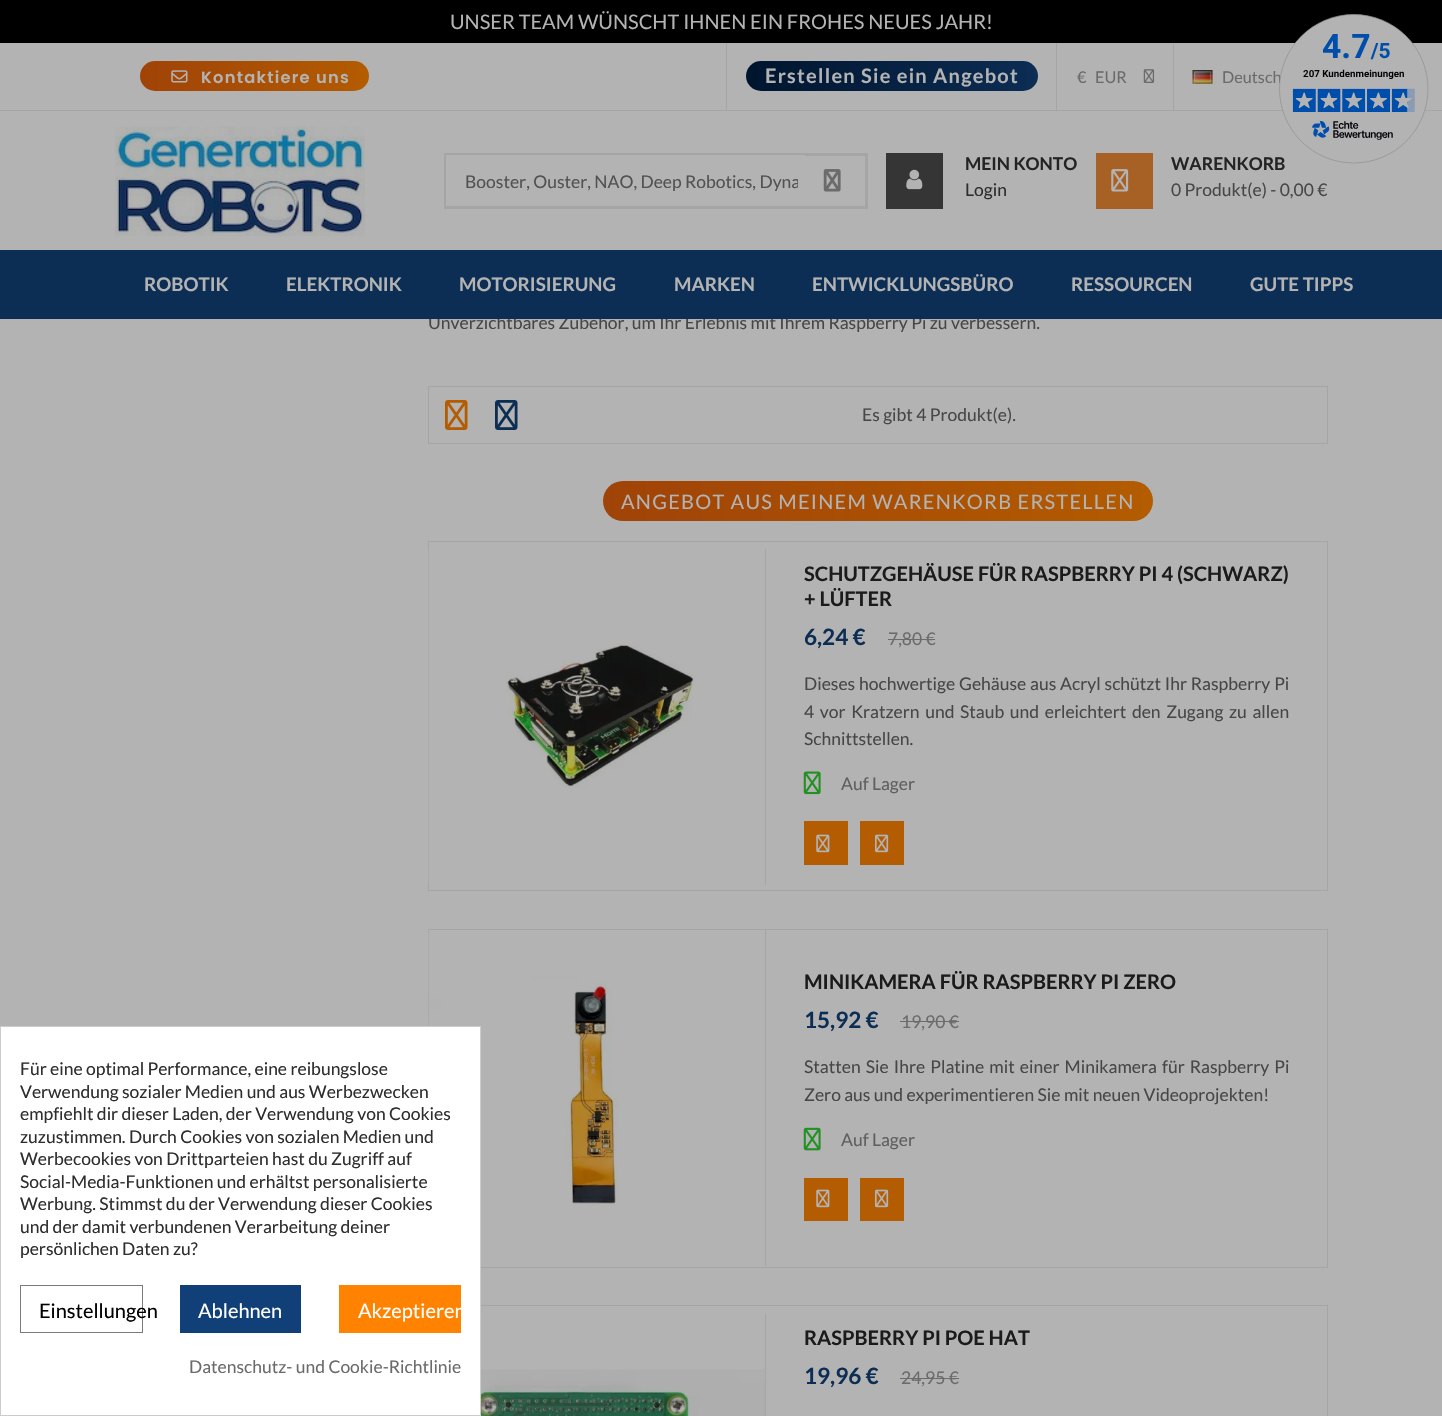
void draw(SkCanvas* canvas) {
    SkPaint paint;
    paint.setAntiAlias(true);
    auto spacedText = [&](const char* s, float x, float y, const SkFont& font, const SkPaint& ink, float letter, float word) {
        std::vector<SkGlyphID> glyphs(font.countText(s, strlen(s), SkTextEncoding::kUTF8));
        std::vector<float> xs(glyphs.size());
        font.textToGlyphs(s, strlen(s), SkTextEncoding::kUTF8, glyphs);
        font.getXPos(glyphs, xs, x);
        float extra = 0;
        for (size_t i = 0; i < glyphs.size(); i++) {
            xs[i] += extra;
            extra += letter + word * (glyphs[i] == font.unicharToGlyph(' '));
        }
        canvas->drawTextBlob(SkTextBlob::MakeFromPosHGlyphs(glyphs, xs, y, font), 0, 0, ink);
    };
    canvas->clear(0xFFB3B3B3);
    paint.setColor(0xFF000000);
    canvas->drawRect(SkRect::MakeXYWH(0, 0, 1442, 43), paint);
    SkFont font1(fontMgr->matchFamilyStyle("Lato", SkFontStyle::Normal()), 20);
    font1.setSubpixel(true);
    paint.setColor(0xFFB3B3B3);
    canvas->drawString("UNSER TEAM WÜNSCHT IHNEN EIN FROHES NEUES JAHR!", 450, 29, font1, paint);
    paint.setColor(0xFFA5A5A5);
    canvas->drawRect(SkRect::MakeXYWH(0, 110, 1442, 1), paint);
    {
        const SkColor colors[] = {0xFFA04308, 0xFFB35C00};
        const float stops[] = {0, 1};
        const SkPoint ends[] = {{140, 76}, {369, 76}};
        paint.setShader(SkGradientShader::MakeLinear(ends, colors, stops, 2, SkTileMode::kClamp));
        paint.setAlpha(255);
    }
    canvas->drawRoundRect(SkRect::MakeXYWH(140, 61, 229, 30), 15, 15, paint);
    canvas->drawImageRect(SkImages::DeferredFromEncodedData(SkData::MakeFromFileName("img1.png")), SkRect::MakeXYWH(171, 70, 17, 13), SkSamplingOptions());
    SkFont font2(fontMgr->matchFamilyStyle("Poppins", SkFontStyle(600, SkFontStyle::kNormal_Width, SkFontStyle::kUpright_Slant)), 16.25f);
    font2.setSubpixel(true);
    paint.setShader(nullptr);
    paint.setColor(0xFFB3B3B3);
    spacedText("Kontaktiere uns", 201, 83, font2, paint, 1.25f, 0);
    paint.setColor(0xFFA5A5A5);
    canvas->drawRect(SkRect::MakeXYWH(726, 43, 1, 67), paint);
    {
        const SkColor colors[] = {0xFF00152E, 0xFF0C2D54};
        const float stops[] = {0, 1};
        const SkPoint ends[] = {{746, 76}, {1038, 76}};
        paint.setShader(SkGradientShader::MakeLinear(ends, colors, stops, 2, SkTileMode::kClamp));
        paint.setAlpha(255);
    }
    canvas->drawRoundRect(SkRect::MakeXYWH(746, 61, 292, 30), 15, 15, paint);
    SkFont font3(fontMgr->matchFamilyStyle("Lato", SkFontStyle::Bold()), 20);
    font3.setSubpixel(true);
    paint.setShader(nullptr);
    paint.setColor(0xFFB3B3B3);
    spacedText("Erstellen Sie ein Angebot", 765, 83, font3, paint, 1.25f, 0);
    paint.setColor(0xFFA5A5A5);
    canvas->drawRect(SkRect::MakeXYWH(1056, 43, 1, 67), paint);
    SkFont font4(fontMgr->matchFamilyStyle("Lato", SkFontStyle::Normal()), 16.25f);
    font4.setSubpixel(true);
    paint.setColor(0xFF6B6B6B);
    canvas->drawString("€", 1077, 83, font4, paint);
    canvas->drawString("EUR", 1095, 83, font4, paint);
    canvas->drawImageRect(SkImages::DeferredFromEncodedData(SkData::MakeFromFileName("img2.png")), SkRect::MakeXYWH(1143, 69, 12, 14), SkSamplingOptions());
    paint.setColor(0xFFA5A5A5);
    canvas->drawRect(SkRect::MakeXYWH(1173, 43, 1, 67), paint);
    canvas->drawImageRect(SkImages::DeferredFromEncodedData(SkData::MakeFromFileName("img3.png")), SkRect::MakeXYWH(1192, 70, 21, 14), SkSamplingOptions());
    paint.setColor(0xFF6B6B6B);
    canvas->drawString("Deutsch", 1222, 83, font4, paint);
    canvas->drawImageRect(SkImages::DeferredFromEncodedData(SkData::MakeFromFileName("img4.png")), SkRect::MakeXYWH(115, 126, 250, 111), SkSamplingOptions());
    paint.setStyle(SkPaint::kStroke_Style);
    paint.setStrokeWidth(3);
    paint.setColor(0xFFA5A5A5);
    canvas->drawRect(SkRect::MakeXYWH(445.5f, 154.5f, 372, 53), paint);
    paint.setStyle(SkPaint::kFill_Style);
    paint.setColor(0xFFB3B3B3);
    canvas->drawRect(SkRect::MakeXYWH(446, 155, 359, 51), paint);
    canvas->save();
    canvas->clipRect(SkRect::MakeXYWH(465, 170, 333, 21));
    SkFont font5(fontMgr->matchFamilyStyle("Lato", SkFontStyle::Normal()), 17.5f);
    font5.setSubpixel(true);
    paint.setColor(0xFF525252);
    canvas->drawString("Booster, Ouster, NAO, Deep Robotics, Dyna", 465, 188, font5, paint);
    canvas->restore();
    paint.setColor(0xFFB3B3B3);
    canvas->drawRect(SkRect::MakeXYWH(816, 156, 3, 50), paint);
    paint.setColor(0xFFA5A5A5);
    canvas->drawRect(SkRect::MakeXYWH(819, 153, 49, 3), paint);
    canvas->drawRect(SkRect::MakeXYWH(865, 153, 3, 56), paint);
    canvas->drawRect(SkRect::MakeXYWH(819, 206, 49, 3), paint);
    canvas->drawImageRect(SkImages::DeferredFromEncodedData(SkData::MakeFromFileName("img5.png")), SkRect::MakeXYWH(823, 169, 18, 23), SkSamplingOptions());
    paint.setColor(0xFF353535);
    canvas->drawRect(SkRect::MakeXYWH(886, 153, 57, 56), paint);
    canvas->drawImageRect(SkImages::DeferredFromEncodedData(SkData::MakeFromFileName("img6.png")), SkRect::MakeXYWH(906, 169, 17, 21), SkSamplingOptions());
    SkFont font6(fontMgr->matchFamilyStyle("Lato", SkFontStyle::Bold()), 17.5f);
    font6.setSubpixel(true);
    paint.setColor(0xFF242424);
    canvas->drawString("MEIN KONTO", 965, 170, font6, paint);
    paint.setColor(0xFF2E2E2E);
    canvas->drawString("Login", 965, 196, font5, paint);
    paint.setColor(0xFFA76124);
    canvas->drawRect(SkRect::MakeXYWH(1096, 153, 57, 56), paint);
    canvas->drawImageRect(SkImages::DeferredFromEncodedData(SkData::MakeFromFileName("img7.png")), SkRect::MakeXYWH(1111, 169, 18, 23), SkSamplingOptions());
    paint.setColor(0xFF242424);
    canvas->drawString("WARENKORB", 1171, 170, font6, paint);
    paint.setColor(0xFF474747);
    canvas->drawString("0 Produkt(e) - 0,00 €", 1171, 196, font5, paint);
    canvas->drawString("Unverzichtbares Zubehör, um Ihr Erlebnis mit Ihrem Raspberry Pi zu verbessern.", 428, 329, font5, paint);
    paint.setColor(0xFF0C2D54);
    canvas->drawRect(SkRect::MakeXYWH(0, 250, 1442, 69), paint);
    SkFont font7(fontMgr->matchFamilyStyle("Lato", SkFontStyle::Bold()), 18.75f);
    font7.setSubpixel(true);
    paint.setColor(0xFFB3B3B3);
    canvas->drawString("ROBOTIK", 144, 291, font7, paint);
    canvas->drawString("ELEKTRONIK", 286, 291, font7, paint);
    canvas->drawString("MOTORISIERUNG", 459, 291, font7, paint);
    canvas->drawString("MARKEN", 674, 291, font7, paint);
    canvas->drawString("ENTWICKLUNGSBÜRO", 812, 291, font7, paint);
    canvas->drawString("RESSOURCEN", 1071, 291, font7, paint);
    canvas->drawString("GUTE TIPPS", 1250, 291, font7, paint);
    paint.setStyle(SkPaint::kStroke_Style);
    paint.setStrokeWidth(1);
    paint.setColor(0xFFA5A5A5);
    canvas->drawRect(SkRect::MakeXYWH(428.5f, 386.5f, 899, 57), paint);
    canvas->drawImageRect(SkImages::DeferredFromEncodedData(SkData::MakeFromFileName("img8.png")), SkRect::MakeXYWH(445, 400, 23, 30), SkSamplingOptions());
    canvas->drawImageRect(SkImages::DeferredFromEncodedData(SkData::MakeFromFileName("img9.png")), SkRect::MakeXYWH(495, 400, 23, 30), SkSamplingOptions());
    paint.setStyle(SkPaint::kFill_Style);
    paint.setColor(0xFF474747);
    canvas->drawString("Es gibt 4 Produkt(e).", 862, 421, font5, paint);
    {
        const SkColor colors[] = {0xFFA04308, 0xFFB35C00};
        const float stops[] = {0, 1};
        const SkPoint ends[] = {{603, 501}, {1153, 501}};
        paint.setShader(SkGradientShader::MakeLinear(ends, colors, stops, 2, SkTileMode::kClamp));
        paint.setAlpha(255);
    }
    canvas->drawRoundRect(SkRect::MakeXYWH(603, 481, 550, 40), 20, 20, paint);
    paint.setShader(nullptr);
    paint.setColor(0xFFB3B3B3);
    spacedText("ANGEBOT AUS MEINEM WARENKORB ERSTELLEN", 621, 509, font1, paint, 1.25f, 0);
    paint.setStyle(SkPaint::kStroke_Style);
    paint.setColor(0xFFA5A5A5);
    canvas->drawRect(SkRect::MakeXYWH(428.5f, 541.5f, 899, 349), paint);
    paint.setStyle(SkPaint::kFill_Style);
    canvas->drawRect(SkRect::MakeXYWH(765, 549, 1, 336), paint);
    canvas->drawImageRect(SkImages::DeferredFromEncodedData(SkData::MakeFromFileName("img10.png")), SkRect::MakeXYWH(428, 549, 268, 336), SkSamplingOptions());
    paint.setColor(0xFF1B1B1B);
    canvas->drawString("SCHUTZGEHÄUSE FÜR RASPBERRY PI 4 (SCHWARZ)", 804, 581, font3, paint);
    canvas->drawString("+ LÜFTER", 804, 606, font3, paint);
    SkFont font8(fontMgr->matchFamilyStyle("Lato", SkFontStyle::Bold()), 22.5f);
    font8.setSubpixel(true);
    paint.setColor(0xFF0C2D54);
    canvas->drawString("6,24 €", 804, 645, font8, paint);
    paint.setColor(0xFF6B6B6B);
    canvas->drawString("7,80 €", 888, 645, font5, paint);
    canvas->drawRect(SkRect::MakeXYWH(888, 639, 47, 1), paint);
    paint.setColor(0xFF474747);
    spacedText("Dieses hochwertige Gehäuse aus Acryl schützt Ihr Raspberry Pi", 804, 690, font5, paint, 0, 0.5f);
    spacedText("4 vor Kratzern und Staub und erleichtert den Zugang zu allen", 804, 718, font5, paint, 0, 2.25f);
    canvas->drawString("Schnittstellen.", 804, 745, font5, paint);
    canvas->drawImageRect(SkImages::DeferredFromEncodedData(SkData::MakeFromFileName("img11.png")), SkRect::MakeXYWH(803, 771, 18, 24), SkSamplingOptions());
    paint.setColor(0xFF5F5F5F);
    canvas->drawString("Auf Lager", 841, 790, font5, paint);
    paint.setColor(0xFFB35C01);
    canvas->drawRect(SkRect::MakeXYWH(804, 821, 44, 44), paint);
    canvas->drawImageRect(SkImages::DeferredFromEncodedData(SkData::MakeFromFileName("img12.png")), SkRect::MakeXYWH(816, 834, 14, 19), SkSamplingOptions());
    canvas->drawRect(SkRect::MakeXYWH(860, 821, 44, 44), paint);
    canvas->drawImageRect(SkImages::DeferredFromEncodedData(SkData::MakeFromFileName("img13.png")), SkRect::MakeXYWH(875, 834, 14, 19), SkSamplingOptions());
    paint.setStyle(SkPaint::kStroke_Style);
    paint.setColor(0xFFA5A5A5);
    canvas->drawRect(SkRect::MakeXYWH(428.5f, 929.5f, 899, 338), paint);
    paint.setStyle(SkPaint::kFill_Style);
    canvas->drawRect(SkRect::MakeXYWH(765, 930, 1, 336), paint);
    canvas->drawImageRect(SkImages::DeferredFromEncodedData(SkData::MakeFromFileName("img14.png")), SkRect::MakeXYWH(428, 930, 190, 336), SkSamplingOptions());
    paint.setColor(0xFF1B1B1B);
    canvas->drawString("MINIKAMERA FÜR RASPBERRY PI ZERO", 804, 989, font3, paint);
    paint.setColor(0xFF0C2D54);
    canvas->drawString("15,92 €", 804, 1028, font8, paint);
    paint.setColor(0xFF6B6B6B);
    canvas->drawString("19,90 €", 901, 1028, font5, paint);
    canvas->drawRect(SkRect::MakeXYWH(900, 1021, 59, 1), paint);
    paint.setColor(0xFF474747);
    spacedText("Statten Sie Ihre Platine mit einer Minikamera für Raspberry Pi", 804, 1073, font5, paint, 0, 1.75f);
    canvas->drawString("Zero aus und experimentieren Sie mit neuen Videoprojekten!", 804, 1101, font5, paint);
    canvas->drawImageRect(SkImages::DeferredFromEncodedData(SkData::MakeFromFileName("img15.png")), SkRect::MakeXYWH(803, 1127, 18, 24), SkSamplingOptions());
    paint.setColor(0xFF5F5F5F);
    canvas->drawString("Auf Lager", 841, 1146, font5, paint);
    paint.setColor(0xFFB35C01);
    canvas->drawRect(SkRect::MakeXYWH(804, 1178, 44, 43), paint);
    canvas->drawImageRect(SkImages::DeferredFromEncodedData(SkData::MakeFromFileName("img12.png")), SkRect::MakeXYWH(816, 1189, 14, 19), SkSamplingOptions());
    canvas->drawRect(SkRect::MakeXYWH(860, 1178, 44, 43), paint);
    canvas->drawImageRect(SkImages::DeferredFromEncodedData(SkData::MakeFromFileName("img13.png")), SkRect::MakeXYWH(875, 1189, 14, 19), SkSamplingOptions());
    paint.setStyle(SkPaint::kStroke_Style);
    paint.setColor(0xFFA5A5A5);
    canvas->drawRect(SkRect::MakeXYWH(428.5f, 1305.5f, 899, 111), paint);
    paint.setStyle(SkPaint::kFill_Style);
    canvas->drawRect(SkRect::MakeXYWH(765, 1314, 1, 102), paint);
    canvas->drawImageRect(SkImages::DeferredFromEncodedData(SkData::MakeFromFileName("img16.png")), SkRect::MakeXYWH(481, 1314, 284, 102), SkSamplingOptions());
    paint.setColor(0xFF1B1B1B);
    canvas->drawString("RASPBERRY PI POE HAT", 804, 1345, font3, paint);
    paint.setColor(0xFF0C2D54);
    canvas->drawString("19,96 €", 804, 1384, font8, paint);
    paint.setColor(0xFF6B6B6B);
    canvas->drawString("24,95 €", 901, 1384, font5, paint);
    canvas->drawRect(SkRect::MakeXYWH(900, 1378, 59, 1), paint);
    canvas->drawImageRect(SkImages::DeferredFromEncodedData(SkData::MakeFromFileName("img17.png")), SkRect::MakeXYWH(1279, 14, 150, 150), SkSamplingOptions());
    paint.setColor(0xFFFFFFFF);
    canvas->drawRect(SkRect::MakeXYWH(0.5f, 1026.5f, 480, 389), paint);
    paint.setStyle(SkPaint::kStroke_Style);
    paint.setColor(0xFFCCCCCC);
    canvas->drawRect(SkRect::MakeXYWH(0.5f, 1026.5f, 480, 389), paint);
    paint.setStyle(SkPaint::kFill_Style);
    paint.setColor(0xFF2E2E2E);
    canvas->drawString("Für eine optimal Performance, eine reibungslose", 20, 1075, font5, paint);
    canvas->drawString("Verwendung sozialer Medien und aus Werbezwecken", 20, 1098, font5, paint);
    canvas->drawString("empfiehlt dir dieser Laden, der Verwendung von Cookies", 20, 1120, font5, paint);
    canvas->drawString("zuzustimmen. Durch Cookies von sozialen Medien und", 20, 1143, font5, paint);
    canvas->drawString("Werbecookies von Drittparteien hast du Zugriff auf", 20, 1165, font5, paint);
    canvas->drawString("Social-Media-Funktionen und erhältst personalisierte", 20, 1188, font5, paint);
    canvas->drawString("Werbung. Stimmst du der Verwendung dieser Cookies", 20, 1210, font5, paint);
    canvas->drawString("und der damit verbundenen Verarbeitung deiner", 20, 1233, font5, paint);
    canvas->drawString("persönlichen Daten zu?", 20, 1255, font5, paint);
    paint.setStyle(SkPaint::kStroke_Style);
    paint.setColor(0xFF7A7A7A);
    canvas->drawRect(SkRect::MakeXYWH(20.5f, 1285.5f, 122, 47), paint);
    paint.setStyle(SkPaint::kFill_Style);
    paint.setColor(0xFF000000);
    canvas->drawString("Einstellungen", 39, 1318, font1, paint);
    paint.setColor(0xFF114078);
    canvas->drawRect(SkRect::MakeXYWH(180, 1285, 121, 48), paint);
    paint.setColor(0xFFFFFFFF);
    canvas->drawString("Ablehnen", 198, 1318, font1, paint);
    paint.setColor(0xFFFF8300);
    canvas->drawRect(SkRect::MakeXYWH(339, 1285, 122, 48), paint);
    paint.setColor(0xFFFFFFFF);
    canvas->drawString("Akzeptieren", 358, 1318, font1, paint);
    paint.setColor(0xFF6B6B6B);
    canvas->drawString("Datenschutz- und Cookie-Richtlinie", 189, 1373, font5, paint);
}
